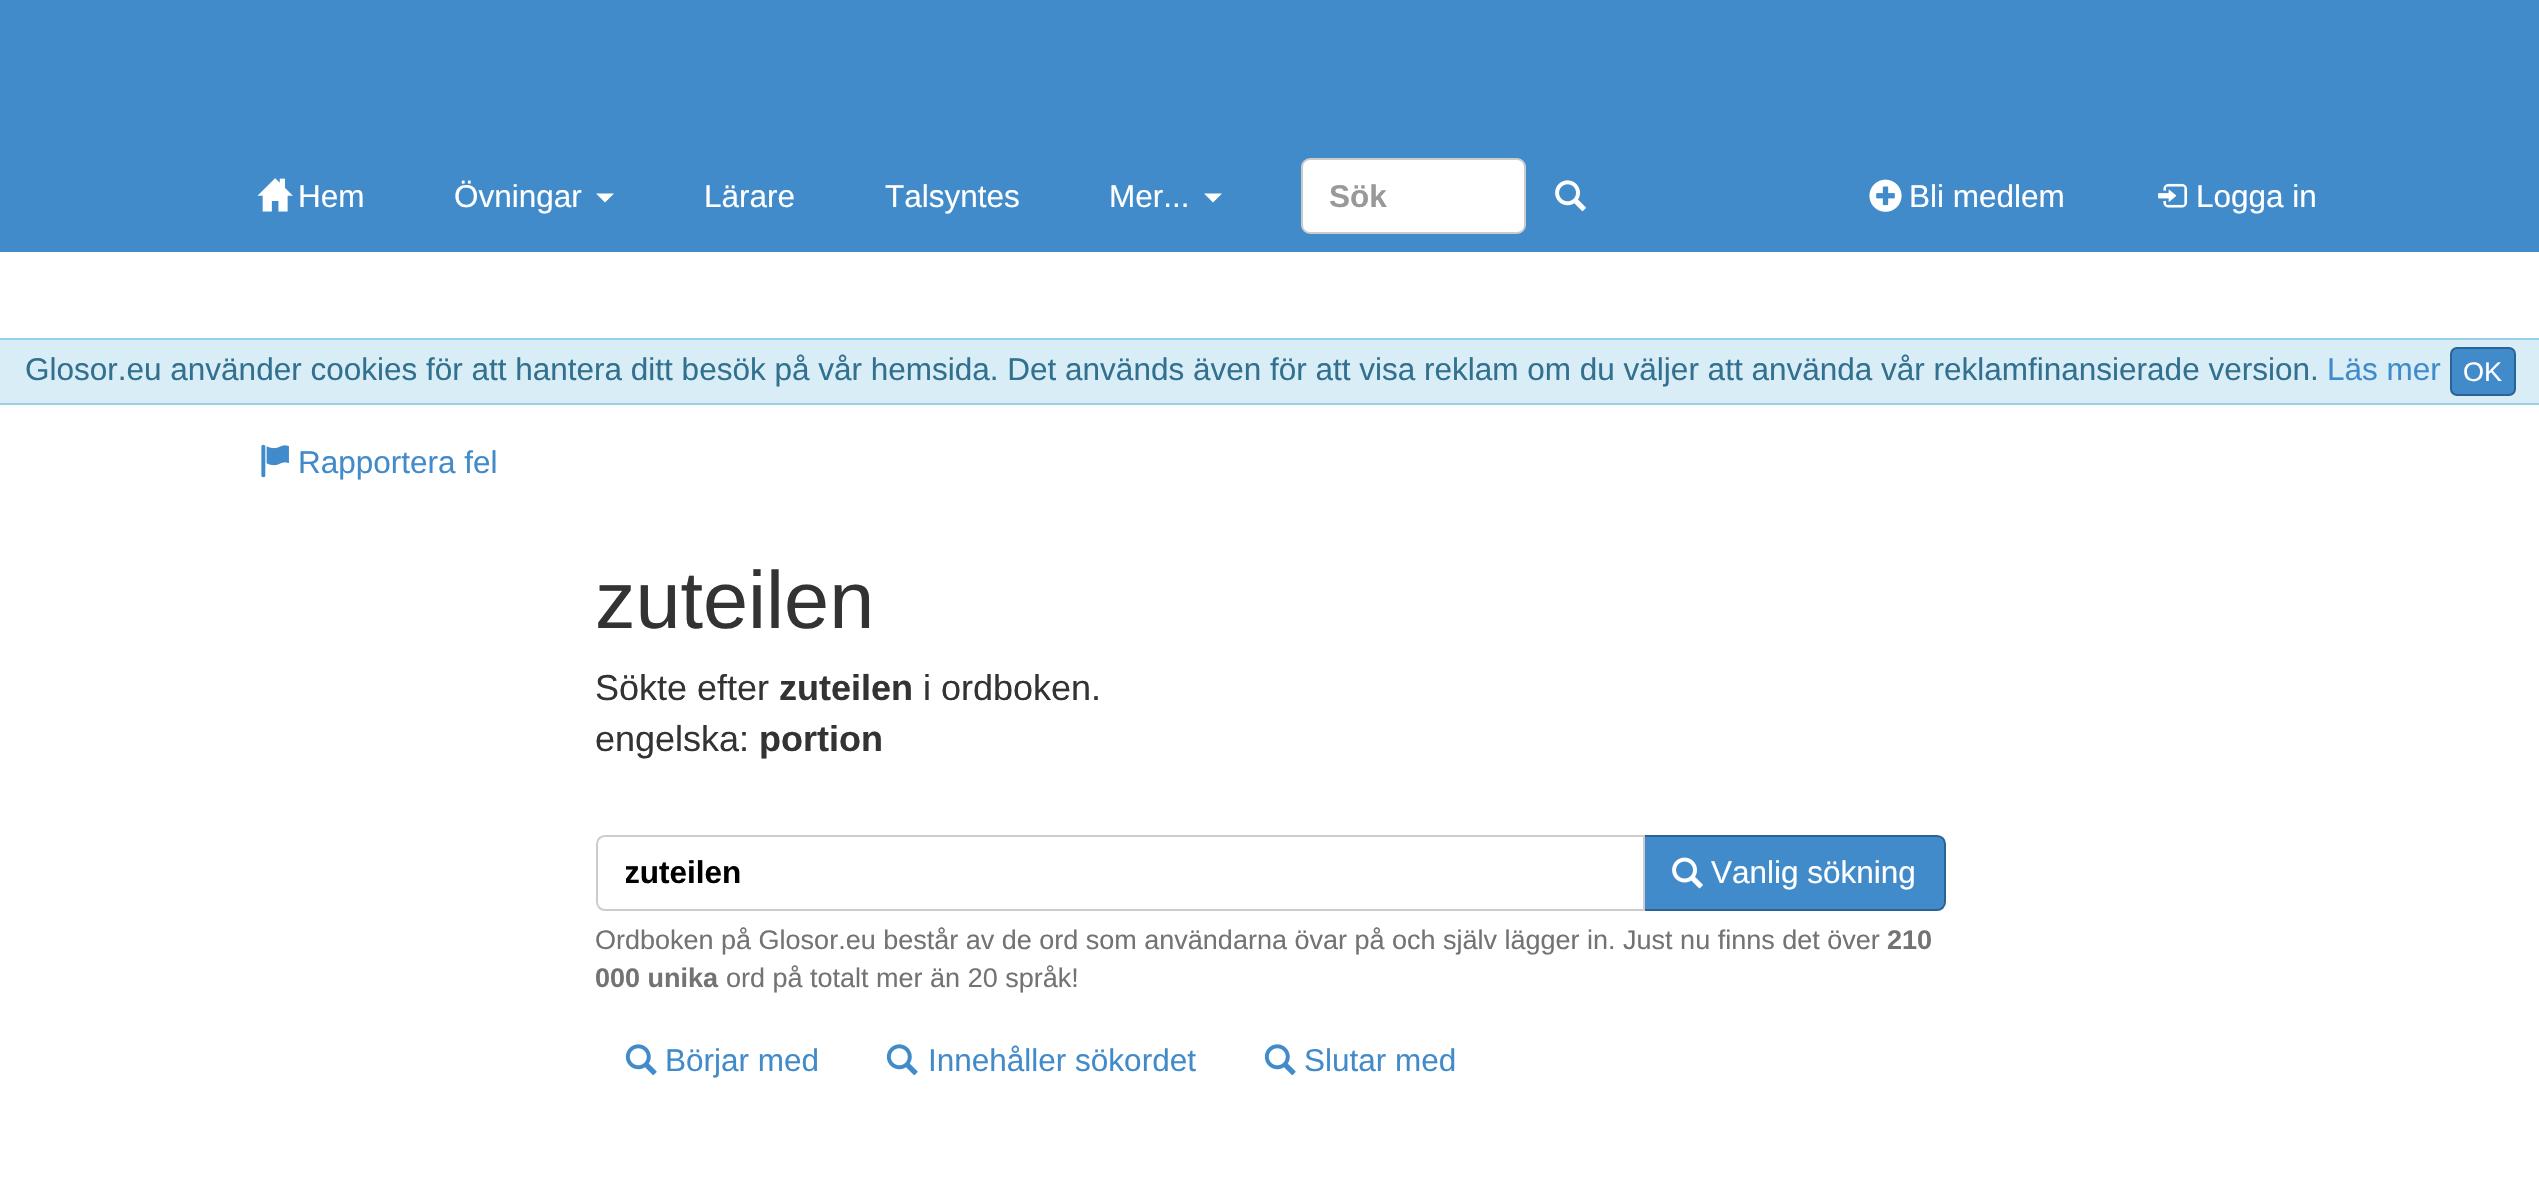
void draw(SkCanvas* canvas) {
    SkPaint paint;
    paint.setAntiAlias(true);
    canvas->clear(0xFFFFFFFF);
    paint.setColor(0xFF428BCA);
    canvas->drawRect(SkRect::MakeXYWH(0, 0, 2539, 252), paint);
    canvas->drawImageRect(SkImages::DeferredFromEncodedData(SkData::MakeFromFileName("img1.png")), SkRect::MakeXYWH(257, 178, 36, 34), SkSamplingOptions());
    SkFont font1(fontMgr->matchFamilyStyle("Liberation Sans", SkFontStyle::Normal()), 31.5f);
    font1.setSubpixel(true);
    paint.setColor(0xFFFFFFFF);
    canvas->drawString("Hem", 298, 207, font1, paint);
    canvas->drawString("Övningar", 454, 207, font1, paint);
    canvas->drawPath(SkPathBuilder().moveTo(596, 193.5f).lineTo(614, 193.5f).lineTo(605, 202.5f).close().detach(), paint);
    canvas->drawString("Lärare", 704, 207, font1, paint);
    canvas->drawString("Talsyntes", 885, 207, font1, paint);
    canvas->drawString("Mer...", 1109, 207, font1, paint);
    canvas->drawPath(SkPathBuilder().moveTo(1204, 193.5f).lineTo(1222, 193.5f).lineTo(1213, 202.5f).close().detach(), paint);
    canvas->drawRoundRect(SkRect::MakeXYWH(1302, 159, 223, 74), 8, 8, paint);
    paint.setStyle(SkPaint::kStroke_Style);
    paint.setStrokeWidth(2);
    paint.setColor(0xFFCCCCCC);
    canvas->drawRoundRect(SkRect::MakeXYWH(1302, 159, 223, 74), 8, 8, paint);
    SkFont font2(fontMgr->matchFamilyStyle("Liberation Sans", SkFontStyle::Bold()), 31.5f);
    font2.setSubpixel(true);
    paint.setStyle(SkPaint::kFill_Style);
    paint.setColor(0xFF999999);
    canvas->drawString("Sök", 1329, 207, font2, paint);
    canvas->drawImageRect(SkImages::DeferredFromEncodedData(SkData::MakeFromFileName("img2.png")), SkRect::MakeXYWH(1555, 180, 31, 32), SkSamplingOptions());
    canvas->drawImageRect(SkImages::DeferredFromEncodedData(SkData::MakeFromFileName("img3.png")), SkRect::MakeXYWH(1869, 179, 33, 33), SkSamplingOptions());
    paint.setColor(0xFFFFFFFF);
    canvas->drawString("Bli medlem", 1909, 207, font1, paint);
    canvas->drawImageRect(SkImages::DeferredFromEncodedData(SkData::MakeFromFileName("img4.png")), SkRect::MakeXYWH(2158, 183, 29, 25), SkSamplingOptions());
    canvas->drawString("Logga in", 2196, 207, font1, paint);
    paint.setColor(0xFFD9EDF7);
    canvas->drawRect(SkRect::MakeXYWH(0, 340, 2539, 63), paint);
    paint.setColor(0xFF9ACFEA);
    canvas->drawRect(SkRect::MakeXYWH(0, 338, 2539, 2), paint);
    canvas->drawRect(SkRect::MakeXYWH(0, 403, 2539, 2), paint);
    paint.setColor(0xFF31708F);
    canvas->drawString("Glosor.eu använder cookies för att hantera ditt besök på vår hemsida. Det används även för att visa reklam om du väljer att använda vår reklamfinansierade version.", 25, 380, font1, paint);
    paint.setColor(0xFF428BCA);
    canvas->drawString("Läs mer", 2327, 380, font1, paint);
    canvas->drawRoundRect(SkRect::MakeXYWH(2451, 348, 64, 47), 6, 6, paint);
    paint.setStyle(SkPaint::kStroke_Style);
    paint.setColor(0xFF2A6496);
    canvas->drawRoundRect(SkRect::MakeXYWH(2451, 348, 64, 47), 6, 6, paint);
    SkFont font3(fontMgr->matchFamilyStyle("Liberation Sans", SkFontStyle::Normal()), 27);
    font3.setSubpixel(true);
    paint.setStyle(SkPaint::kFill_Style);
    paint.setColor(0xFFFFFFFF);
    canvas->drawString("OK", 2463, 381, font3, paint);
    canvas->drawImageRect(SkImages::DeferredFromEncodedData(SkData::MakeFromFileName("img5.png")), SkRect::MakeXYWH(261, 444, 28, 34), SkSamplingOptions());
    paint.setColor(0xFF428BCA);
    canvas->drawString("Rapportera fel", 298, 473, font1, paint);
    SkFont font4(fontMgr->matchFamilyStyle("Liberation Sans", SkFontStyle::Normal()), 81);
    font4.setSubpixel(true);
    paint.setColor(0xFF333333);
    canvas->drawString("zuteilen", 595, 628, font4, paint);
    SkFont font5(fontMgr->matchFamilyStyle("Liberation Sans", SkFontStyle::Normal()), 36);
    font5.setSubpixel(true);
    canvas->drawString("Sökte efter", 595, 700, font5, paint);
    SkFont font6(fontMgr->matchFamilyStyle("Liberation Sans", SkFontStyle::Bold()), 36);
    font6.setSubpixel(true);
    canvas->drawString("zuteilen", 779, 700, font6, paint);
    canvas->drawString("i ordboken.", 923, 700, font5, paint);
    canvas->drawString("engelska:", 595, 751, font5, paint);
    canvas->drawString("portion", 759, 751, font6, paint);
    paint.setColor(0xFF428BCA);
    canvas->drawPath(SkPathBuilder().moveTo(1644, 836).lineTo(1937, 836).cubicTo(1941.5f, 836, 1945, 839.5f, 1945, 844).lineTo(1945, 902).cubicTo(1945, 906.5f, 1941.5f, 910, 1937, 910).lineTo(1644, 910).close().detach(), paint);
    paint.setStyle(SkPaint::kStroke_Style);
    paint.setColor(0xFF2A6496);
    canvas->drawPath(SkPathBuilder().moveTo(1644, 836).lineTo(1937, 836).cubicTo(1941.5f, 836, 1945, 839.5f, 1945, 844).lineTo(1945, 902).cubicTo(1945, 906.5f, 1941.5f, 910, 1937, 910).lineTo(1644, 910).close().detach(), paint);
    paint.setStyle(SkPaint::kFill_Style);
    paint.setColor(0xFFFFFFFF);
    canvas->drawPath(SkPathBuilder().moveTo(605, 836).lineTo(1644, 836).lineTo(1644, 910).lineTo(605, 910).cubicTo(600.5f, 910, 597, 906.5f, 597, 902).lineTo(597, 844).cubicTo(597, 839.5f, 600.5f, 836, 605, 836).close().detach(), paint);
    paint.setStyle(SkPaint::kStroke_Style);
    paint.setColor(0xFFCCCCCC);
    canvas->drawPath(SkPathBuilder().moveTo(605, 836).lineTo(1644, 836).lineTo(1644, 910).lineTo(605, 910).cubicTo(600.5f, 910, 597, 906.5f, 597, 902).lineTo(597, 844).cubicTo(597, 839.5f, 600.5f, 836, 605, 836).close().detach(), paint);
    canvas->save();
    canvas->clipRect(SkRect::MakeXYWH(626, 855, 990, 36));
    paint.setStyle(SkPaint::kFill_Style);
    paint.setColor(0xFF000000);
    canvas->drawString("zuteilen", 624, 883, font2, paint);
    canvas->restore();
    canvas->drawImageRect(SkImages::DeferredFromEncodedData(SkData::MakeFromFileName("img6.png")), SkRect::MakeXYWH(1672, 857, 31, 32), SkSamplingOptions());
    paint.setColor(0xFFFFFFFF);
    canvas->drawString("Vanlig sökning", 1711, 883, font1, paint);
    paint.setColor(0xFF737373);
    canvas->drawString("Ordboken på Glosor.eu består av de ord som användarna övar på och själv lägger in. Just nu finns det över", 595, 949, font3, paint);
    SkFont font7(fontMgr->matchFamilyStyle("Liberation Sans", SkFontStyle::Bold()), 27);
    font7.setSubpixel(true);
    canvas->drawString("210", 1887, 949, font7, paint);
    canvas->drawString("000 unika", 595, 987, font7, paint);
    canvas->drawString("ord på totalt mer än 20 språk!", 726, 987, font3, paint);
    canvas->drawImageRect(SkImages::DeferredFromEncodedData(SkData::MakeFromFileName("img7.png")), SkRect::MakeXYWH(625, 1044, 32, 32), SkSamplingOptions());
    paint.setColor(0xFF428BCA);
    canvas->drawString("Börjar med", 665, 1071, font1, paint);
    canvas->drawImageRect(SkImages::DeferredFromEncodedData(SkData::MakeFromFileName("img7.png")), SkRect::MakeXYWH(886, 1044, 32, 32), SkSamplingOptions());
    canvas->drawString("Innehåller sökordet", 928, 1071, font1, paint);
    canvas->drawImageRect(SkImages::DeferredFromEncodedData(SkData::MakeFromFileName("img7.png")), SkRect::MakeXYWH(1264, 1044, 32, 32), SkSamplingOptions());
    canvas->drawString("Slutar med", 1304, 1071, font1, paint);
}
